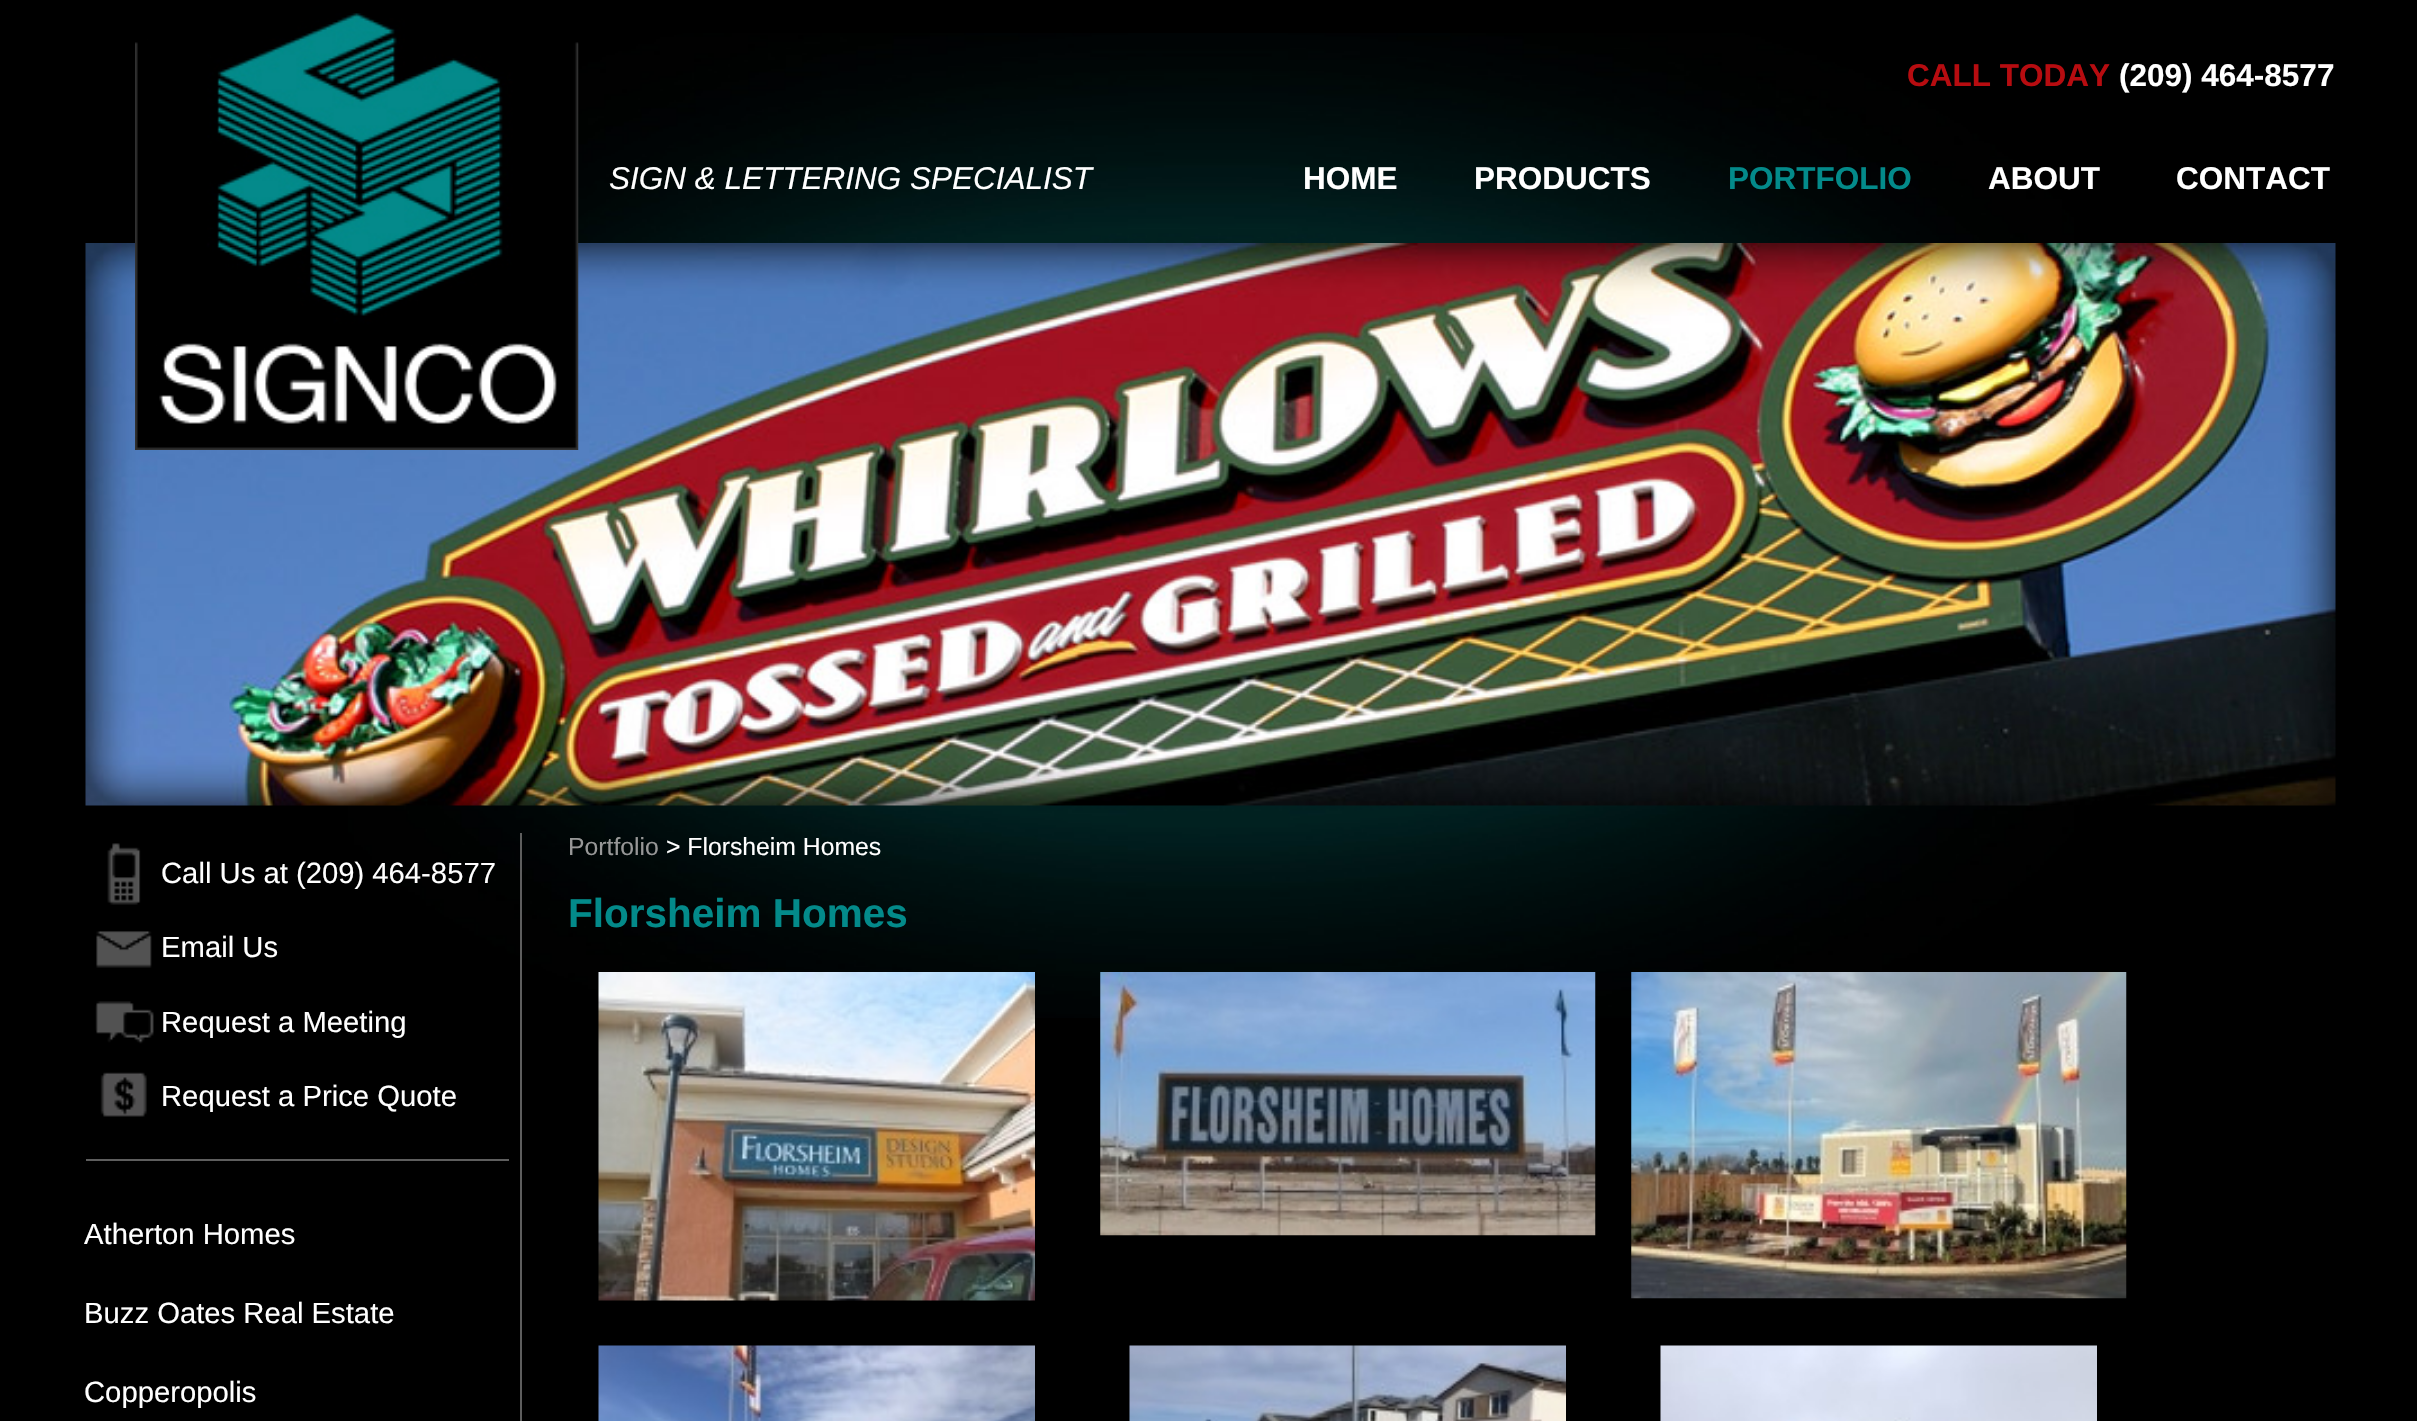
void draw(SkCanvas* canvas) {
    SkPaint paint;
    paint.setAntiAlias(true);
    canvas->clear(0xFF000000);
    canvas->drawImageRect(SkImages::DeferredFromEncodedData(SkData::MakeFromFileName("img2.png")), SkRect::MakeXYWH(348, 33, 1726, 985), SkSamplingOptions());
    canvas->drawImageRect(SkImages::DeferredFromEncodedData(SkData::MakeFromFileName("img3.png")), SkRect::MakeXYWH(85, 243, 2251, 563), SkSamplingOptions());
    canvas->drawImageRect(SkImages::DeferredFromEncodedData(SkData::MakeFromFileName("img1.png")), SkRect::MakeXYWH(135, 13, 444, 437), SkSamplingOptions());
    SkFont font1(fontMgr->matchFamilyStyle("Liberation Sans", SkFontStyle::Bold()), 31.5f);
    font1.setSubpixel(true);
    paint.setColor(0xFFB70C10);
    canvas->drawString("CALL TODAY", 1907, 86, font1, paint);
    paint.setColor(0xFFFFFFFF);
    canvas->drawString("(209) 464-8577", 2119, 86, font1, paint);
    SkFont font2(fontMgr->matchFamilyStyle("Liberation Sans", SkFontStyle::Italic()), 31.5f);
    font2.setSubpixel(true);
    canvas->drawString("SIGN & LETTERING SPECIALIST", 609, 189, font2, paint);
    canvas->drawString("HOME", 1303, 189, font1, paint);
    canvas->drawString("PRODUCTS", 1474, 189, font1, paint);
    paint.setColor(0xFF038A8A);
    canvas->drawString("PORTFOLIO", 1728, 189, font1, paint);
    paint.setColor(0xFFFFFFFF);
    canvas->drawString("ABOUT", 1988, 189, font1, paint);
    canvas->drawString("CONTACT", 2176, 189, font1, paint);
    paint.setColor(0xFF5E5E5E);
    canvas->drawRect(SkRect::MakeXYWH(520, 833, 2, 588), paint);
    canvas->drawImageRect(SkImages::DeferredFromEncodedData(SkData::MakeFromFileName("img4.png")), SkRect::MakeXYWH(107, 843, 34, 62), SkSamplingOptions());
    SkFont font3(fontMgr->matchFamilyStyle("Liberation Sans", SkFontStyle::Normal()), 29.25f);
    font3.setSubpixel(true);
    paint.setColor(0xFFFFFFFF);
    canvas->drawString("Call Us at (209) 464-8577", 161, 883, font3, paint);
    canvas->drawImageRect(SkImages::DeferredFromEncodedData(SkData::MakeFromFileName("img5.png")), SkRect::MakeXYWH(96, 931, 56, 37), SkSamplingOptions());
    canvas->drawString("Email Us", 161, 957, font3, paint);
    canvas->drawImageRect(SkImages::DeferredFromEncodedData(SkData::MakeFromFileName("img6.png")), SkRect::MakeXYWH(95, 1001, 59, 43), SkSamplingOptions());
    canvas->drawString("Request a Meeting", 161, 1032, font3, paint);
    canvas->drawImageRect(SkImages::DeferredFromEncodedData(SkData::MakeFromFileName("img7.png")), SkRect::MakeXYWH(100, 1072, 47, 45), SkSamplingOptions());
    canvas->drawString("Request a Price Quote", 161, 1106, font3, paint);
    paint.setColor(0xFF5E5E5E);
    canvas->drawRect(SkRect::MakeXYWH(86, 1159, 423, 2), paint);
    paint.setColor(0xFFFFFFFF);
    canvas->drawString("Atherton Homes", 84, 1244, font3, paint);
    canvas->drawString("Buzz Oates Real Estate", 84, 1323, font3, paint);
    canvas->drawString("Copperopolis", 84, 1402, font3, paint);
    SkFont font4(fontMgr->matchFamilyStyle("Liberation Sans", SkFontStyle::Normal()), 24.75f);
    font4.setSubpixel(true);
    paint.setColor(0xFF979797);
    canvas->drawString("Portfolio", 568, 855, font4, paint);
    paint.setColor(0xFFFFFFFF);
    canvas->drawString("> Florsheim Homes", 666, 855, font4, paint);
    SkFont font5(fontMgr->matchFamilyStyle("Liberation Sans", SkFontStyle::Bold()), 40.5f);
    font5.setSubpixel(true);
    paint.setColor(0xFF038A8A);
    canvas->drawString("Florsheim Homes", 568, 927, font5, paint);
    canvas->drawImageRect(SkImages::DeferredFromEncodedData(SkData::MakeFromFileName("img8.png")), SkRect::MakeXYWH(598, 972, 437, 329), SkSamplingOptions());
    canvas->drawImageRect(SkImages::DeferredFromEncodedData(SkData::MakeFromFileName("img9.png")), SkRect::MakeXYWH(1100, 972, 496, 264), SkSamplingOptions());
    canvas->drawImageRect(SkImages::DeferredFromEncodedData(SkData::MakeFromFileName("img10.png")), SkRect::MakeXYWH(1631, 972, 496, 327), SkSamplingOptions());
    canvas->drawImageRect(SkImages::DeferredFromEncodedData(SkData::MakeFromFileName("img11.png")), SkRect::MakeXYWH(598, 1345, 437, 76), SkSamplingOptions());
    canvas->drawImageRect(SkImages::DeferredFromEncodedData(SkData::MakeFromFileName("img12.png")), SkRect::MakeXYWH(1129, 1345, 437, 76), SkSamplingOptions());
    canvas->drawImageRect(SkImages::DeferredFromEncodedData(SkData::MakeFromFileName("img13.png")), SkRect::MakeXYWH(1660, 1345, 437, 76), SkSamplingOptions());
}
